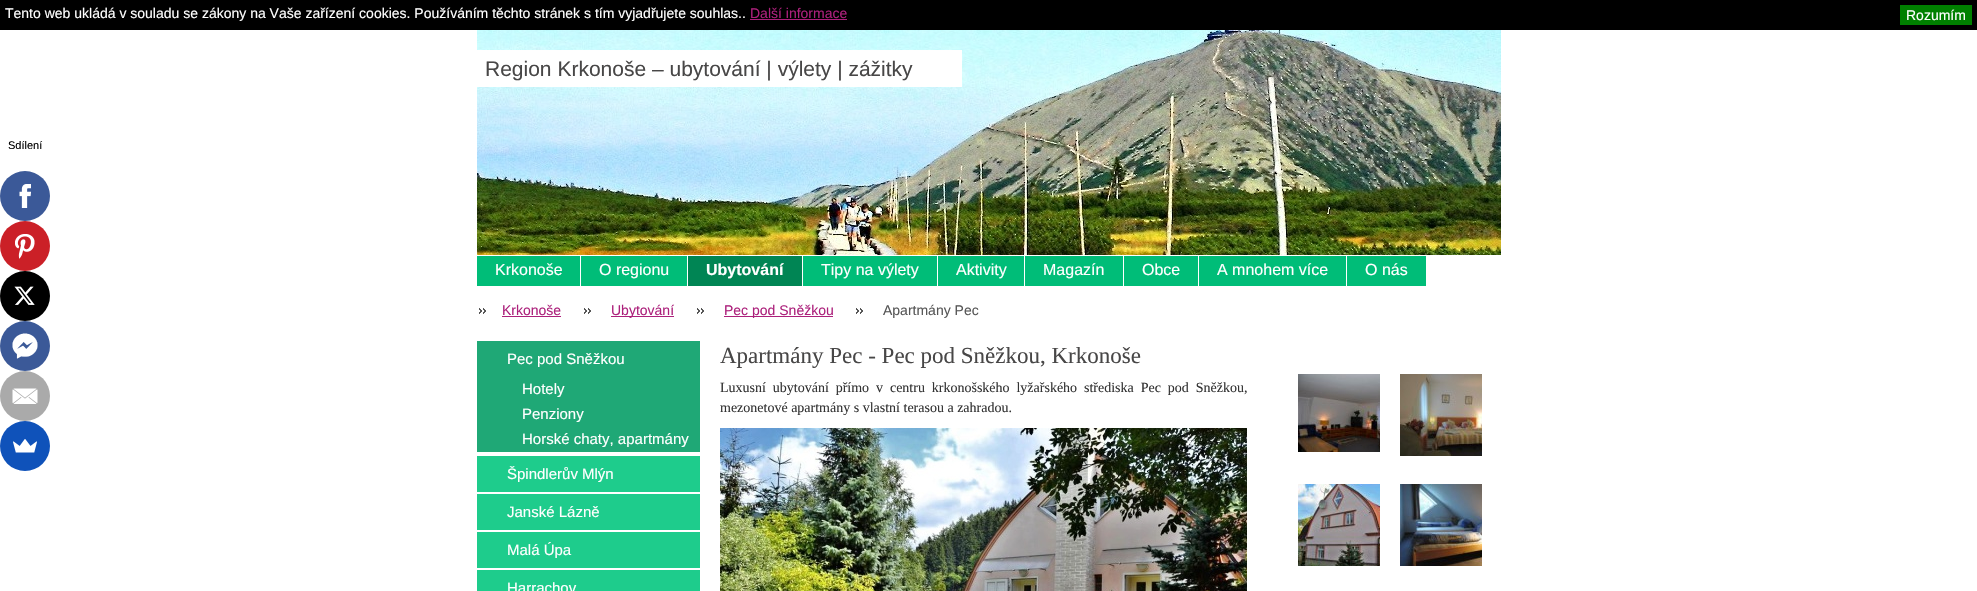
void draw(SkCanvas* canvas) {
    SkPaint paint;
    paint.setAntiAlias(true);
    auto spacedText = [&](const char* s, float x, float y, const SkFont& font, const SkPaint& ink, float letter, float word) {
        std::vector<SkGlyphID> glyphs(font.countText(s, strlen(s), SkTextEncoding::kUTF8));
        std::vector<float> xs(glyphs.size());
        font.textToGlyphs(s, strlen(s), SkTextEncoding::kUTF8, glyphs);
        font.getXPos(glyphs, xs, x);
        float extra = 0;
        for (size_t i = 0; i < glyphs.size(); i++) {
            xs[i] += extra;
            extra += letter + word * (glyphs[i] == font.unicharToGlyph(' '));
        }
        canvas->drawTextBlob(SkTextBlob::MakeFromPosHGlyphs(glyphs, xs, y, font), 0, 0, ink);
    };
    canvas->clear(0xFFFFFFFF);
    paint.setColor(0xFF000000);
    canvas->drawRect(SkRect::MakeXYWH(0, 0, 1977, 30), paint);
    SkFont font1(fontMgr->matchFamilyStyle("Liberation Sans", SkFontStyle::Normal()), 14);
    font1.setSubpixel(true);
    paint.setColor(0xFFFFFFFF);
    canvas->drawString("Tento web ukládá v souladu se zákony na Vaše zařízení cookies. Používáním těchto stránek s tím vyjadřujete souhlas..", 5, 18, font1, paint);
    paint.setColor(0xFFAC207B);
    canvas->drawString("Další informace", 750, 18, font1, paint);
    canvas->drawRect(SkRect::MakeXYWH(750, 19, 97, 1), paint);
    paint.setColor(0xFF008000);
    canvas->drawRect(SkRect::MakeXYWH(1900, 5, 72, 20), paint);
    paint.setColor(0xFFFFFFFF);
    canvas->drawString("Rozumím", 1906, 20, font1, paint);
    SkFont font2(fontMgr->matchFamilyStyle("Liberation Sans", SkFontStyle::Normal()), 11);
    font2.setSubpixel(true);
    paint.setColor(0xFF000000);
    canvas->drawString("Sdílení", 8, 149, font2, paint);
    paint.setColor(0xFF3B5998);
    canvas->drawCircle(25, 196, 25, paint);
    canvas->drawImageRect(SkImages::DeferredFromEncodedData(SkData::MakeFromFileName("img1.png")), SkRect::MakeXYWH(19, 184, 12, 24), SkSamplingOptions());
    paint.setColor(0xFFCB2027);
    canvas->drawCircle(25, 246, 25, paint);
    canvas->drawImageRect(SkImages::DeferredFromEncodedData(SkData::MakeFromFileName("img2.png")), SkRect::MakeXYWH(15, 234, 20, 25), SkSamplingOptions());
    paint.setColor(0xFF000000);
    canvas->drawCircle(25, 296, 25, paint);
    canvas->drawImageRect(SkImages::DeferredFromEncodedData(SkData::MakeFromFileName("img3.png")), SkRect::MakeXYWH(14, 286, 21, 19), SkSamplingOptions());
    paint.setColor(0xFF3B5998);
    canvas->drawCircle(25, 346, 25, paint);
    canvas->drawImageRect(SkImages::DeferredFromEncodedData(SkData::MakeFromFileName("img4.png")), SkRect::MakeXYWH(12, 333, 26, 26), SkSamplingOptions());
    paint.setColor(0xFFAAAAAA);
    canvas->drawCircle(25, 396, 25, paint);
    canvas->drawImageRect(SkImages::DeferredFromEncodedData(SkData::MakeFromFileName("img5.png")), SkRect::MakeXYWH(12, 388, 26, 16), SkSamplingOptions());
    paint.setColor(0xFF0F52BA);
    canvas->drawCircle(25, 446, 25, paint);
    canvas->drawImageRect(SkImages::DeferredFromEncodedData(SkData::MakeFromFileName("img6.png")), SkRect::MakeXYWH(13, 439, 24, 14), SkSamplingOptions());
    canvas->drawImageRect(SkImages::DeferredFromEncodedData(SkData::MakeFromFileName("img7.png")), SkRect::MakeXYWH(477, 30, 1024, 225), SkSamplingOptions());
    paint.setColor(0xFFFFFFFF);
    canvas->drawRect(SkRect::MakeXYWH(477, 50, 485, 37), paint);
    SkFont font3(fontMgr->matchFamilyStyle("Liberation Sans", SkFontStyle::Normal()), 21);
    font3.setSubpixel(true);
    paint.setColor(0xFF484747);
    canvas->drawString("Region Krkonoše – ubytování | výlety | zážitky", 485, 76, font3, paint);
    paint.setColor(0xFF00BD78);
    canvas->drawRect(SkRect::MakeXYWH(477, 256, 103, 30), paint);
    SkFont font4(fontMgr->matchFamilyStyle("Liberation Sans", SkFontStyle::Normal()), 16);
    font4.setSubpixel(true);
    paint.setColor(0xFFFFFFFF);
    canvas->drawString("Krkonoše", 495, 275, font4, paint);
    paint.setColor(0xFF00BD78);
    canvas->drawRect(SkRect::MakeXYWH(581, 256, 106, 30), paint);
    paint.setColor(0xFFFFFFFF);
    canvas->drawString("O regionu", 599, 275, font4, paint);
    paint.setColor(0xFF008554);
    canvas->drawRect(SkRect::MakeXYWH(688, 256, 114, 30), paint);
    SkFont font5(fontMgr->matchFamilyStyle("Liberation Sans", SkFontStyle::Bold()), 16);
    font5.setSubpixel(true);
    paint.setColor(0xFFFFFFFF);
    canvas->drawString("Ubytování", 706, 275, font5, paint);
    paint.setColor(0xFF00BD78);
    canvas->drawRect(SkRect::MakeXYWH(803, 256, 134, 30), paint);
    paint.setColor(0xFFFFFFFF);
    canvas->drawString("Tipy na výlety", 821, 275, font4, paint);
    paint.setColor(0xFF00BD78);
    canvas->drawRect(SkRect::MakeXYWH(938, 256, 86, 30), paint);
    paint.setColor(0xFFFFFFFF);
    canvas->drawString("Aktivity", 956, 275, font4, paint);
    paint.setColor(0xFF00BD78);
    canvas->drawRect(SkRect::MakeXYWH(1025, 256, 98, 30), paint);
    paint.setColor(0xFFFFFFFF);
    canvas->drawString("Magazín", 1043, 275, font4, paint);
    paint.setColor(0xFF00BD78);
    canvas->drawRect(SkRect::MakeXYWH(1124, 256, 74, 30), paint);
    paint.setColor(0xFFFFFFFF);
    canvas->drawString("Obce", 1142, 275, font4, paint);
    paint.setColor(0xFF00BD78);
    canvas->drawRect(SkRect::MakeXYWH(1199, 256, 147, 30), paint);
    paint.setColor(0xFFFFFFFF);
    canvas->drawString("A mnohem více", 1217, 275, font4, paint);
    paint.setColor(0xFF00BD78);
    canvas->drawRect(SkRect::MakeXYWH(1347, 256, 79, 30), paint);
    paint.setColor(0xFFFFFFFF);
    canvas->drawString("O nás", 1365, 275, font4, paint);
    canvas->drawImageRect(SkImages::DeferredFromEncodedData(SkData::MakeFromFileName("img8.png")), SkRect::MakeXYWH(479, 308, 7, 6), SkSamplingOptions());
    paint.setColor(0xFFAC207B);
    canvas->drawString("Krkonoše", 502, 315, font1, paint);
    canvas->drawRect(SkRect::MakeXYWH(502, 316, 59, 1), paint);
    canvas->drawImageRect(SkImages::DeferredFromEncodedData(SkData::MakeFromFileName("img8.png")), SkRect::MakeXYWH(584, 308, 7, 6), SkSamplingOptions());
    canvas->drawRect(SkRect::MakeXYWH(611, 316, 63, 1), paint);
    canvas->drawString("Ubytování", 611, 315, font1, paint);
    canvas->drawImageRect(SkImages::DeferredFromEncodedData(SkData::MakeFromFileName("img8.png")), SkRect::MakeXYWH(697, 308, 7, 6), SkSamplingOptions());
    canvas->drawRect(SkRect::MakeXYWH(724, 316, 109, 1), paint);
    canvas->drawString("Pec pod Sněžkou", 724, 315, font1, paint);
    canvas->drawImageRect(SkImages::DeferredFromEncodedData(SkData::MakeFromFileName("img8.png")), SkRect::MakeXYWH(856, 308, 7, 6), SkSamplingOptions());
    paint.setColor(0xFF575757);
    canvas->drawString("Apartmány Pec", 883, 315, font1, paint);
    paint.setColor(0xFF1FA876);
    canvas->drawRect(SkRect::MakeXYWH(477, 341, 223, 111), paint);
    SkFont font6(fontMgr->matchFamilyStyle("Liberation Sans", SkFontStyle::Normal()), 15);
    font6.setSubpixel(true);
    paint.setColor(0xFFFFFFFF);
    canvas->drawString("Pec pod Sněžkou", 507, 364, font6, paint);
    canvas->drawString("Hotely", 522, 394, font6, paint);
    canvas->drawString("Penziony", 522, 419, font6, paint);
    canvas->drawString("Horské chaty, apartmány", 522, 444, font6, paint);
    paint.setColor(0xFF1ECC8C);
    canvas->drawRect(SkRect::MakeXYWH(477, 456, 223, 36), paint);
    paint.setColor(0xFFFFFFFF);
    canvas->drawString("Špindlerův Mlýn", 507, 479, font6, paint);
    paint.setColor(0xFF1ECC8C);
    canvas->drawRect(SkRect::MakeXYWH(477, 494, 223, 36), paint);
    paint.setColor(0xFFFFFFFF);
    canvas->drawString("Janské Lázně", 507, 517, font6, paint);
    paint.setColor(0xFF1ECC8C);
    canvas->drawRect(SkRect::MakeXYWH(477, 532, 223, 36), paint);
    paint.setColor(0xFFFFFFFF);
    canvas->drawString("Malá Úpa", 507, 555, font6, paint);
    paint.setColor(0xFF1ECC8C);
    canvas->drawRect(SkRect::MakeXYWH(477, 570, 223, 21), paint);
    paint.setColor(0xFFFFFFFF);
    canvas->drawString("Harrachov", 507, 593, font6, paint);
    SkFont font7(fontMgr->matchFamilyStyle("Liberation Serif", SkFontStyle::Normal()), 23);
    font7.setSubpixel(true);
    paint.setColor(0xFF484747);
    canvas->drawString("Apartmány Pec - Pec pod Sněžkou, Krkonoše", 720, 363, font7, paint);
    SkFont font8(fontMgr->matchFamilyStyle("Liberation Serif", SkFontStyle::Normal()), 14);
    font8.setSubpixel(true);
    paint.setColor(0xFF333333);
    spacedText("Luxusní ubytování přímo v centru krkonošského lyžařského střediska Pec pod Sněžkou,", 720, 392, font8, paint, 0, 3.4f);
    canvas->drawString("mezonetové apartmány s vlastní terasou a zahradou.", 720, 412, font8, paint);
    canvas->drawImageRect(SkImages::DeferredFromEncodedData(SkData::MakeFromFileName("img9.png")), SkRect::MakeXYWH(720, 428, 527, 163), SkSamplingOptions());
    canvas->drawImageRect(SkImages::DeferredFromEncodedData(SkData::MakeFromFileName("img10.png")), SkRect::MakeXYWH(1298, 374, 82, 78), SkSamplingOptions());
    canvas->drawImageRect(SkImages::DeferredFromEncodedData(SkData::MakeFromFileName("img11.png")), SkRect::MakeXYWH(1400, 374, 82, 82), SkSamplingOptions());
    canvas->drawImageRect(SkImages::DeferredFromEncodedData(SkData::MakeFromFileName("img12.png")), SkRect::MakeXYWH(1298, 484, 82, 82), SkSamplingOptions());
    canvas->drawImageRect(SkImages::DeferredFromEncodedData(SkData::MakeFromFileName("img13.png")), SkRect::MakeXYWH(1400, 484, 82, 82), SkSamplingOptions());
}
